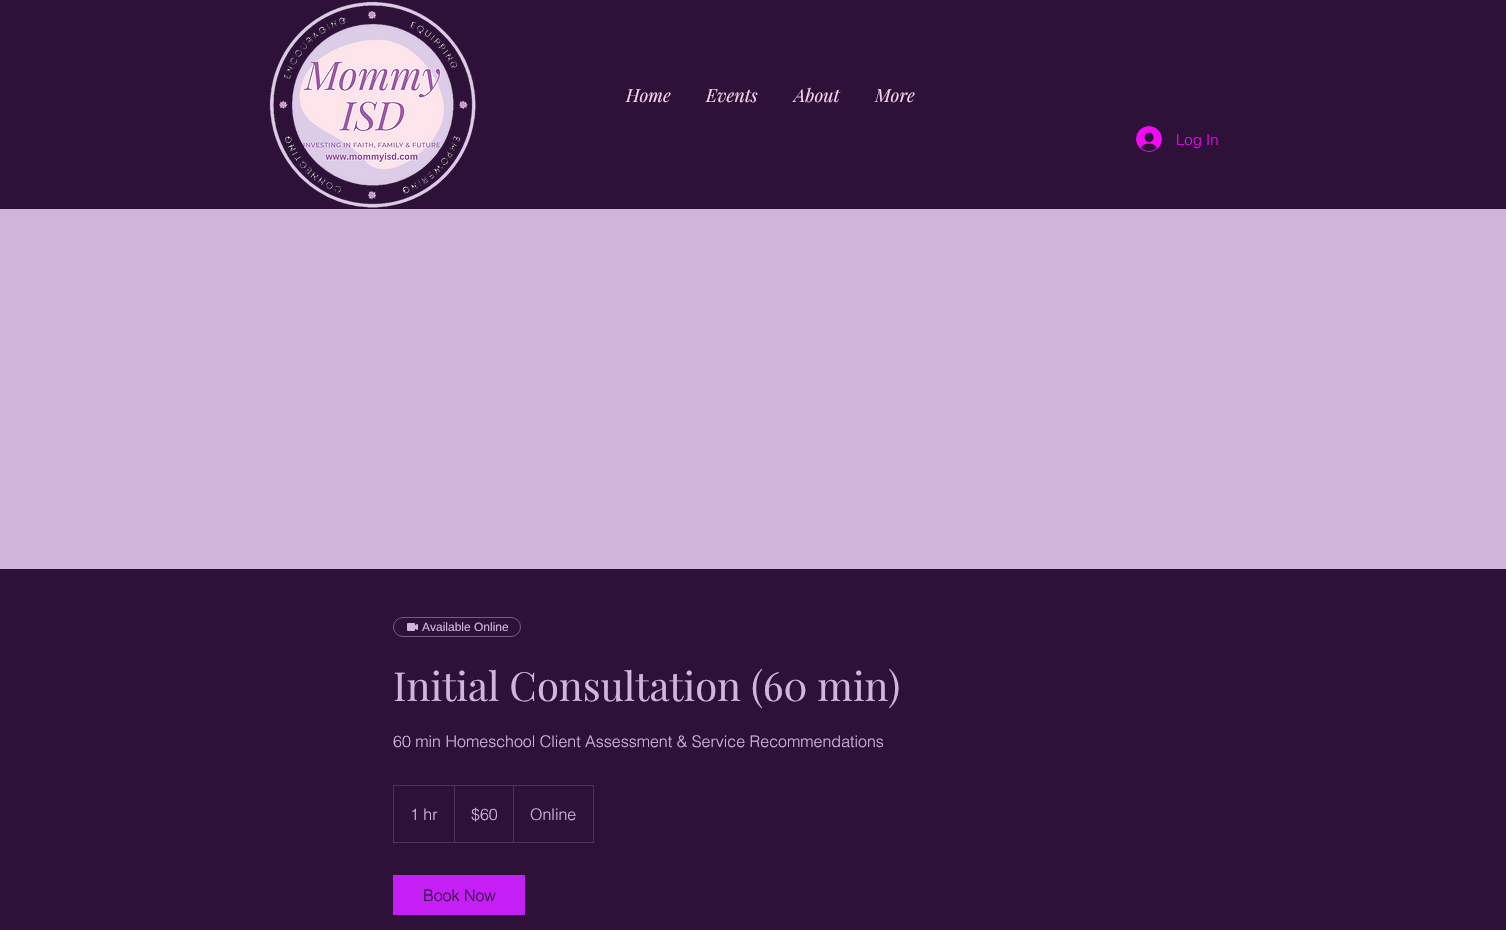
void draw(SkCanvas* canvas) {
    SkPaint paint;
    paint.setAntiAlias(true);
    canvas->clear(0xFF2E1138);
    canvas->drawImageRect(SkImages::DeferredFromEncodedData(SkData::MakeFromFileName("img1.png")), SkRect::MakeXYWH(269, 1, 207, 207), SkSamplingOptions());
    SkFont font1(fontMgr->matchFamilyStyle("Playfair Display", SkFontStyle::Italic()), 18);
    font1.setSubpixel(true);
    paint.setColor(0xFFF9D5E9);
    canvas->drawString("Home", 626, 102, font1, paint);
    canvas->drawString("Events", 706, 102, font1, paint);
    canvas->drawString("About", 794, 102, font1, paint);
    canvas->drawString("More", 875, 102, font1, paint);
    canvas->drawImageRect(SkImages::DeferredFromEncodedData(SkData::MakeFromFileName("img2.png")), SkRect::MakeXYWH(1136, 126, 26, 26), SkSamplingOptions());
    SkFont font2(fontMgr->matchFamilyStyle("helvetica", SkFontStyle(300, SkFontStyle::kNormal_Width, SkFontStyle::kUpright_Slant)), 15);
    font2.setSubpixel(true);
    paint.setColor(0xFFF409F5);
    canvas->drawString("Log In", 1176, 145, font2, paint);
    paint.setColor(0xFFD2B5DB);
    canvas->drawRect(SkRect::MakeXYWH(0, 209, 1506, 360), paint);
    paint.setStyle(SkPaint::kStroke_Style);
    paint.setStrokeWidth(1);
    paint.setColor(0xFF785B81);
    canvas->drawRoundRect(SkRect::MakeXYWH(393.5f, 617.5f, 127, 19), 9.5f, 9.5f, paint);
    canvas->drawImageRect(SkImages::DeferredFromEncodedData(SkData::MakeFromFileName("img3.png")), SkRect::MakeXYWH(407, 623, 11, 8), SkSamplingOptions());
    SkFont font3(fontMgr->matchFamilyStyle("Liberation Sans", SkFontStyle::Normal()), 12);
    font3.setSubpixel(true);
    paint.setStyle(SkPaint::kFill_Style);
    paint.setColor(0xFFD2B5DB);
    canvas->drawString("Available Online", 422, 631, font3, paint);
    SkFont font4(fontMgr->matchFamilyStyle("Playfair Display", SkFontStyle::Normal()), 40);
    font4.setSubpixel(true);
    canvas->drawString("Initial Consultation (60 min)", 393, 701, font4, paint);
    SkFont font5(fontMgr->matchFamilyStyle("helvetica", SkFontStyle(300, SkFontStyle::kNormal_Width, SkFontStyle::kUpright_Slant)), 16);
    font5.setSubpixel(true);
    canvas->drawString("60 min Homeschool Client Assessment & Service Recommendations", 393, 747, font5, paint);
    paint.setStyle(SkPaint::kStroke_Style);
    paint.setColor(0xFF4F3259);
    canvas->drawRect(SkRect::MakeXYWH(393.5f, 785.5f, 200, 57), paint);
    paint.setStyle(SkPaint::kFill_Style);
    paint.setColor(0xFFD2B5DB);
    canvas->drawString("1 hr", 410, 820, font5, paint);
    paint.setColor(0xFF4F3259);
    canvas->drawPath(SkPathBuilder().moveTo(454, 842).lineTo(454, 785).lineTo(455, 786).lineTo(455, 842).close().detach(), paint);
    paint.setColor(0xFFD2B5DB);
    canvas->drawString("$60", 471, 820, font5, paint);
    paint.setColor(0xFF4F3259);
    canvas->drawPath(SkPathBuilder().moveTo(513, 842).lineTo(513, 785).lineTo(514, 786).lineTo(514, 842).close().detach(), paint);
    paint.setColor(0xFFD2B5DB);
    canvas->drawString("Online", 530, 820, font5, paint);
    paint.setColor(0xFFC51FF5);
    canvas->drawRect(SkRect::MakeXYWH(393, 875, 132, 40), paint);
    paint.setColor(0xFF2E1138);
    canvas->drawString("Book Now", 423, 901, font5, paint);
}
